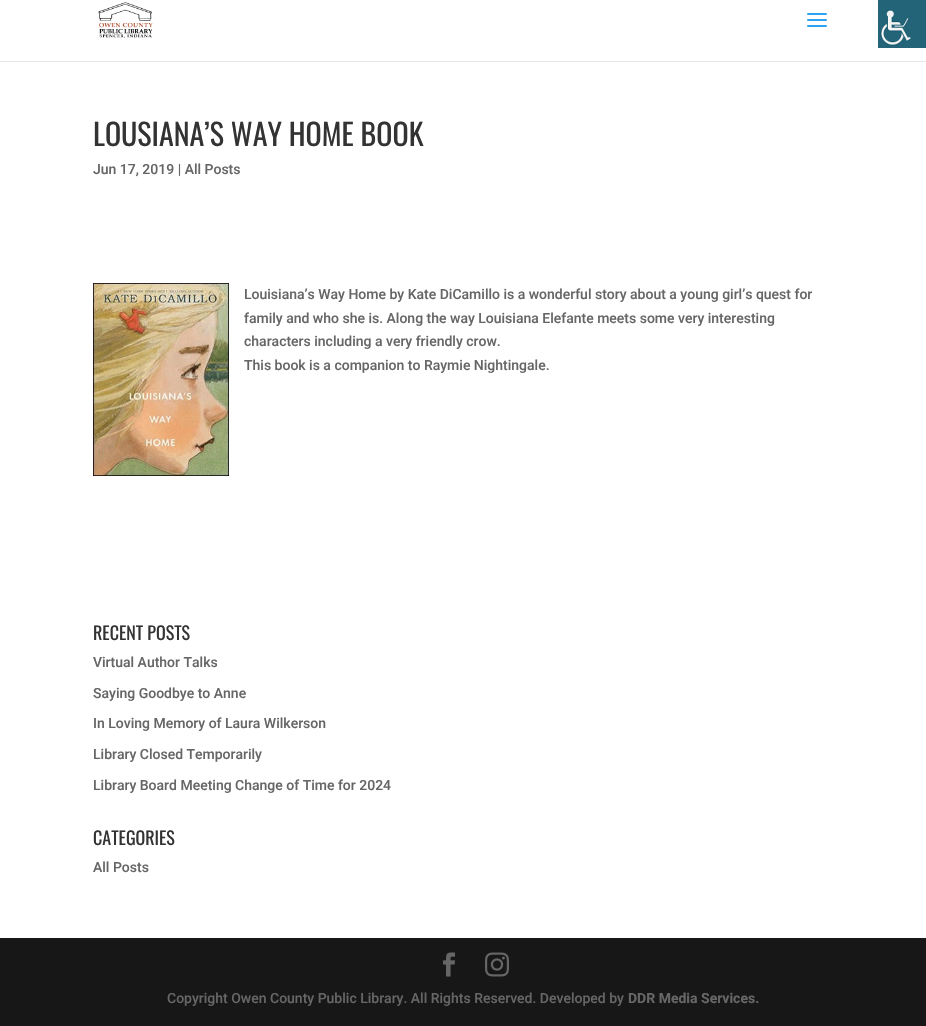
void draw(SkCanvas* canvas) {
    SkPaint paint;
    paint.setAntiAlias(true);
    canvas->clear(0xFFFFFFFF);
    canvas->drawImageRect(SkImages::DeferredFromEncodedData(SkData::MakeFromFileName("img1.png")), SkRect::MakeXYWH(878, 0, 48, 48), SkSamplingOptions());
    paint.setColor(0xFFE6E6E6);
    canvas->drawRect(SkRect::MakeXYWH(0, 61, 926, 1), paint);
    canvas->drawImageRect(SkImages::DeferredFromEncodedData(SkData::MakeFromFileName("img2.png")), SkRect::MakeXYWH(98, 2, 55, 36), SkSamplingOptions());
    canvas->drawImageRect(SkImages::DeferredFromEncodedData(SkData::MakeFromFileName("img3.png")), SkRect::MakeXYWH(807, 13, 20, 14), SkSamplingOptions());
    SkFont font1(fontMgr->matchFamilyStyle("Oswald", SkFontStyle::Normal()), 30);
    font1.setSubpixel(true);
    paint.setColor(0xFF333333);
    canvas->drawString("LOUSIANA’S WAY HOME BOOK", 93, 146, font1, paint);
    SkFont font2(fontMgr->matchFamilyStyle("Roboto", SkFontStyle(500, SkFontStyle::kNormal_Width, SkFontStyle::kUpright_Slant)), 14);
    font2.setSubpixel(true);
    paint.setColor(0xFF666666);
    canvas->drawString("Jun 17, 2019 | All Posts", 93, 174, font2, paint);
    canvas->drawImageRect(SkImages::DeferredFromEncodedData(SkData::MakeFromFileName("img4.png")), SkRect::MakeXYWH(93, 283, 136, 193), SkSamplingOptions());
    canvas->drawString("Louisiana’s Way Home by Kate DiCamillo is a wonderful story about a young girl’s quest for", 244, 299, font2, paint);
    canvas->drawString("family and who she is. Along the way Louisiana Elefante meets some very interesting", 244, 323, font2, paint);
    canvas->drawString("characters including a very friendly crow.", 244, 346, font2, paint);
    canvas->drawString("This book is a companion to Raymie Nightingale.", 244, 370, font2, paint);
    SkFont font3(fontMgr->matchFamilyStyle("Oswald", SkFontStyle::Normal()), 18);
    font3.setSubpixel(true);
    paint.setColor(0xFF333333);
    canvas->drawString("RECENT POSTS", 93, 640, font3, paint);
    paint.setColor(0xFF666666);
    canvas->drawString("Virtual Author Talks", 93, 667, font2, paint);
    canvas->drawString("Saying Goodbye to Anne", 93, 698, font2, paint);
    canvas->drawString("In Loving Memory of Laura Wilkerson", 93, 728, font2, paint);
    canvas->drawString("Library Closed Temporarily", 93, 759, font2, paint);
    canvas->drawString("Library Board Meeting Change of Time for 2024", 93, 790, font2, paint);
    paint.setColor(0xFF333333);
    canvas->drawString("CATEGORIES", 93, 845, font3, paint);
    paint.setColor(0xFF666666);
    canvas->drawString("All Posts", 93, 872, font2, paint);
    paint.setColor(0xFF171717);
    canvas->drawRect(SkRect::MakeXYWH(0, 938, 926, 88), paint);
    canvas->drawImageRect(SkImages::DeferredFromEncodedData(SkData::MakeFromFileName("img5.png")), SkRect::MakeXYWH(443, 952, 12, 25), SkSamplingOptions());
    canvas->drawImageRect(SkImages::DeferredFromEncodedData(SkData::MakeFromFileName("img6.png")), SkRect::MakeXYWH(485, 952, 24, 25), SkSamplingOptions());
    paint.setColor(0xFF666666);
    canvas->drawString("Copyright Owen County Public Library. All Rights Reserved. Developed by", 167, 1003, font2, paint);
    SkFont font4(fontMgr->matchFamilyStyle("Roboto", SkFontStyle::Bold()), 14);
    font4.setSubpixel(true);
    canvas->drawString("DDR Media Services.", 628, 1003, font4, paint);
}
